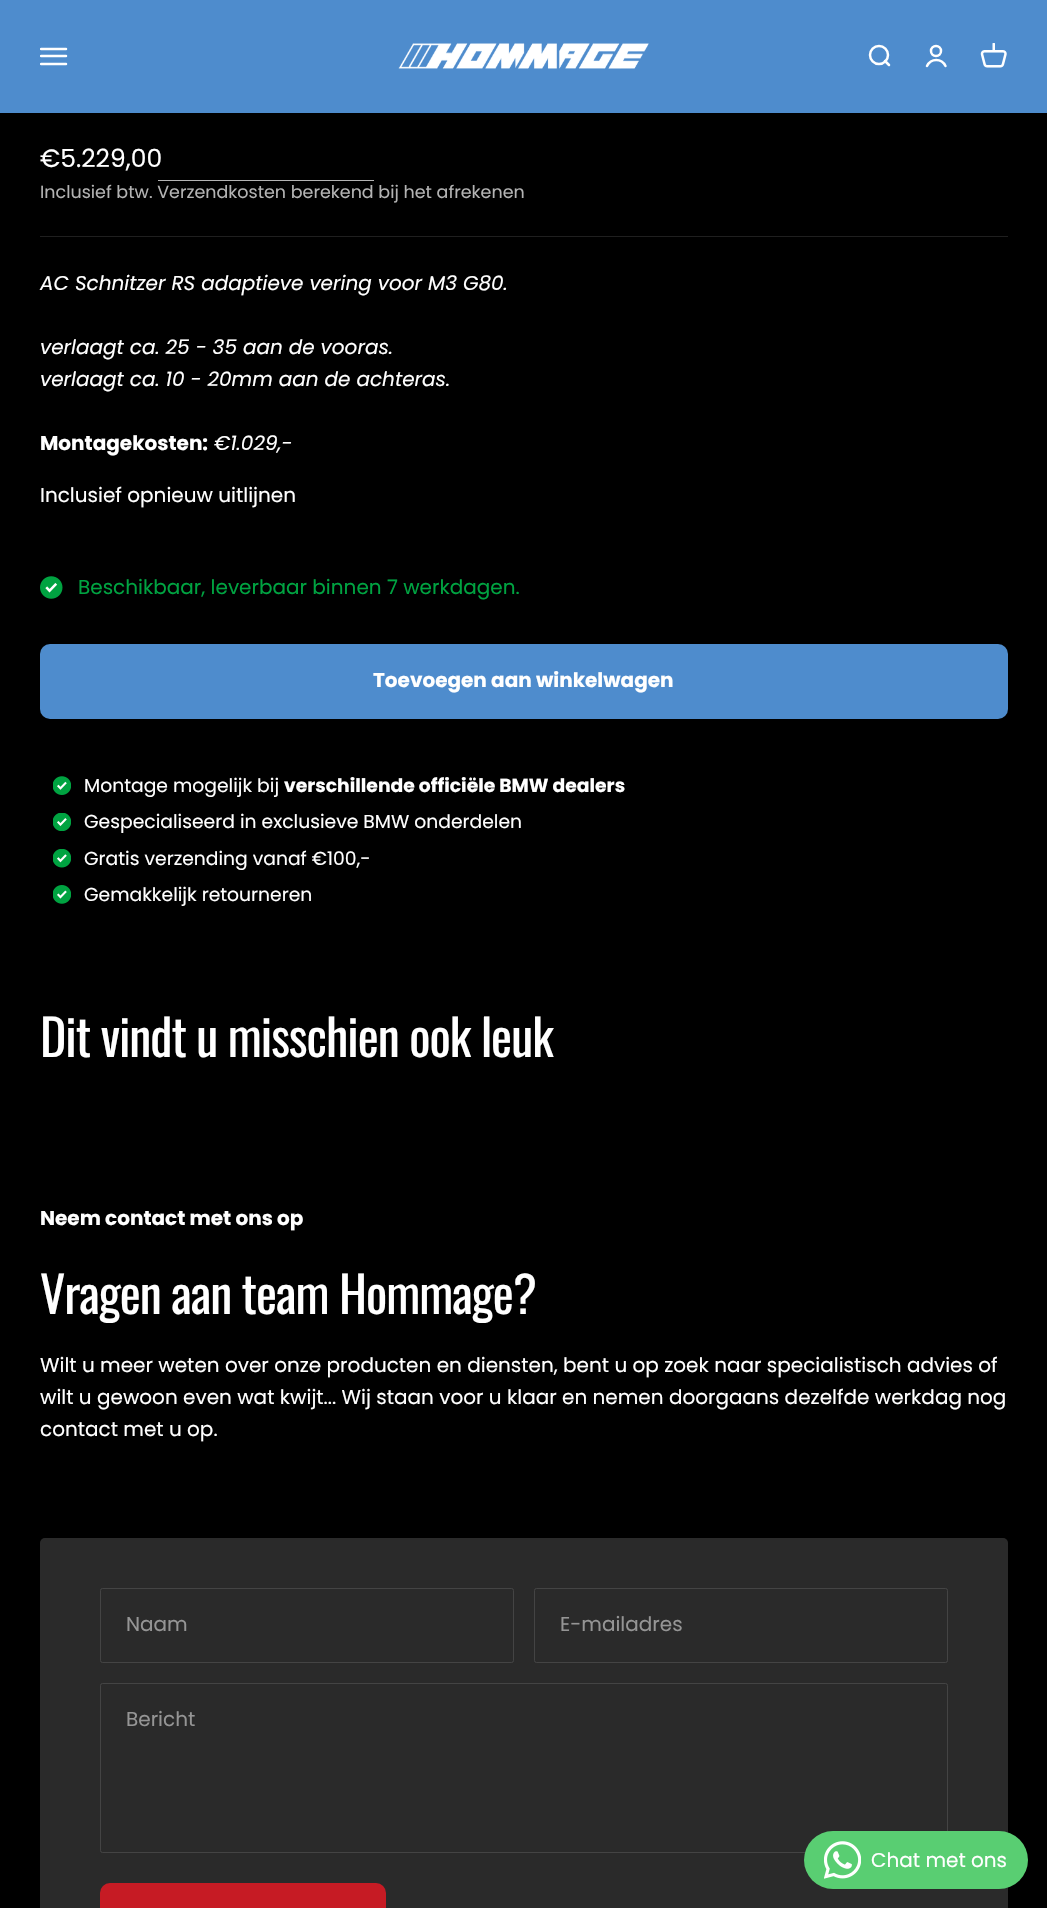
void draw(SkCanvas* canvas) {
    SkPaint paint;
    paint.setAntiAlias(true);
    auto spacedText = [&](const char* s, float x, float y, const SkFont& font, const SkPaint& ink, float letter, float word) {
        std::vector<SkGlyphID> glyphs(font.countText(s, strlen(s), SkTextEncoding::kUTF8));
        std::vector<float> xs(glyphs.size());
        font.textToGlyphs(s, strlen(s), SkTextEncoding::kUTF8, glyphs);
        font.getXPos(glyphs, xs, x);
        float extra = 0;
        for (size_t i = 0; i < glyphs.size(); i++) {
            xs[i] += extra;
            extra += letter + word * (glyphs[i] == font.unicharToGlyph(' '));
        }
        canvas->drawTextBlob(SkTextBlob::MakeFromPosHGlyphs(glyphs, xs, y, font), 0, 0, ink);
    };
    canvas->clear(0xFF000000);
    paint.setColor(0xFF4E8CCD);
    canvas->drawRect(SkRect::MakeXYWH(0, 0, 1047, 113), paint);
    canvas->save();
    canvas->clipRect(SkRect::MakeXYWH(40, 43, 28, 27));
    paint.setStyle(SkPaint::kStroke_Style);
    paint.setStrokeWidth(2.5f);
    paint.setStrokeCap(SkPaint::kRound_Cap);
    paint.setColor(0xFFFFFFFF);
    canvas->drawPath(SkPathBuilder().moveTo(41, 49).lineTo(66, 49).moveTo(41, 56).lineTo(66, 56).moveTo(41, 64).lineTo(66, 64).detach(), paint);
    canvas->restore();
    canvas->drawImageRect(SkImages::DeferredFromEncodedData(SkData::MakeFromFileName("img1.png")), SkRect::MakeXYWH(398, 43, 251, 26), SkSamplingOptions());
    paint.setStrokeCap(SkPaint::kButt_Cap);
    canvas->drawCircle(879, 55, 9, paint);
    paint.setStrokeCap(SkPaint::kRound_Cap);
    paint.setStrokeJoin(SkPaint::kRound_Join);
    canvas->drawPath(SkPathBuilder().moveTo(885, 61).lineTo(889, 65).detach(), paint);
    paint.setStrokeCap(SkPaint::kButt_Cap);
    paint.setStrokeJoin(SkPaint::kMiter_Join);
    canvas->drawCircle(936, 51, 5, paint);
    paint.setStrokeCap(SkPaint::kRound_Cap);
    canvas->drawPath(SkPathBuilder().moveTo(927, 66).cubicTo(931, 58, 941.5f, 58, 945.5f, 66).detach(), paint);
    canvas->drawImageRect(SkImages::DeferredFromEncodedData(SkData::MakeFromFileName("img2.png")), SkRect::MakeXYWH(980, 43, 27, 25), SkSamplingOptions());
    SkFont font1(fontMgr->matchFamilyStyle("Poppins", SkFontStyle::Normal()), 25);
    font1.setSubpixel(true);
    paint.setStyle(SkPaint::kFill_Style);
    canvas->drawString("€5.229,00", 40, 167, font1, paint);
    paint.setColor(0xFFB3B3B3);
    canvas->drawRect(SkRect::MakeXYWH(158, 180, 216, 1), paint);
    SkFont font2(fontMgr->matchFamilyStyle("Poppins", SkFontStyle::Normal()), 17.5f);
    font2.setSubpixel(true);
    canvas->drawString("Inclusief btw. Verzendkosten berekend bij het afrekenen", 40, 198, font2, paint);
    paint.setColor(0xFF1F1F1F);
    canvas->drawRect(SkRect::MakeXYWH(40, 236, 968, 1), paint);
    SkFont font3(fontMgr->matchFamilyStyle("Poppins", SkFontStyle::Italic()), 20);
    font3.setSubpixel(true);
    paint.setColor(0xFFFFFFFF);
    canvas->drawString("AC Schnitzer RS adaptieve vering voor M3 G80.", 40, 290, font3, paint);
    canvas->drawString("verlaagt ca. 25 - 35 aan de vooras.", 40, 354, font3, paint);
    canvas->drawString("verlaagt ca. 10 - 20mm aan de achteras.", 40, 386, font3, paint);
    SkFont font4(fontMgr->matchFamilyStyle("Poppins", SkFontStyle::Bold()), 20);
    font4.setSubpixel(true);
    canvas->drawString("Montagekosten:", 40, 450, font4, paint);
    canvas->drawString("€1.029,-", 214, 450, font3, paint);
    SkFont font5(fontMgr->matchFamilyStyle("Poppins", SkFontStyle::Normal()), 20);
    font5.setSubpixel(true);
    canvas->drawString("Inclusief opnieuw uitlijnen", 40, 502, font5, paint);
    canvas->drawImageRect(SkImages::DeferredFromEncodedData(SkData::MakeFromFileName("img3.png")), SkRect::MakeXYWH(40, 576, 23, 23), SkSamplingOptions());
    paint.setColor(0xFF00A341);
    canvas->drawString("Beschikbaar, leverbaar binnen 7 werkdagen.", 78, 594, font5, paint);
    paint.setColor(0xFF4E8CCD);
    canvas->drawRoundRect(SkRect::MakeXYWH(40, 644, 968, 75), 10, 10, paint);
    paint.setColor(0xFFFFFFFF);
    canvas->drawString("Toevoegen aan winkelwagen", 373, 687, font4, paint);
    canvas->drawImageRect(SkImages::DeferredFromEncodedData(SkData::MakeFromFileName("img4.png")), SkRect::MakeXYWH(53, 776, 18, 19), SkSamplingOptions());
    SkFont font6(fontMgr->matchFamilyStyle("Poppins", SkFontStyle::Normal()), 18.75f);
    font6.setSubpixel(true);
    canvas->drawString("Montage mogelijk bij", 84, 792, font6, paint);
    SkFont font7(fontMgr->matchFamilyStyle("Poppins", SkFontStyle::Bold()), 18.75f);
    font7.setSubpixel(true);
    canvas->drawString("verschillende officiële BMW dealers", 284, 792, font7, paint);
    canvas->drawImageRect(SkImages::DeferredFromEncodedData(SkData::MakeFromFileName("img5.png")), SkRect::MakeXYWH(53, 813, 18, 18), SkSamplingOptions());
    canvas->drawString("Gespecialiseerd in exclusieve BMW onderdelen", 84, 828, font6, paint);
    canvas->drawImageRect(SkImages::DeferredFromEncodedData(SkData::MakeFromFileName("img6.png")), SkRect::MakeXYWH(53, 849, 18, 19), SkSamplingOptions());
    canvas->drawString("Gratis verzending vanaf €100,-", 84, 865, font6, paint);
    canvas->drawImageRect(SkImages::DeferredFromEncodedData(SkData::MakeFromFileName("img7.png")), SkRect::MakeXYWH(53, 885, 18, 19), SkSamplingOptions());
    canvas->drawString("Gemakkelijk retourneren", 84, 901, font6, paint);
    SkFont font8(fontMgr->matchFamilyStyle("Oswald", SkFontStyle::Normal()), 50);
    font8.setSubpixel(true);
    spacedText("Dit vindt u misschien ook leuk", 40, 1057, font8, paint, -1, 0);
    canvas->drawString("Neem contact met ons op", 40, 1225, font4, paint);
    spacedText("Vragen aan team Hommage?", 40, 1314, font8, paint, -1, 0);
    canvas->drawString("Wilt u meer weten over onze producten en diensten, bent u op zoek naar specialistisch advies of", 40, 1372, font5, paint);
    canvas->drawString("wilt u gewoon even wat kwijt... Wij staan voor u klaar en nemen doorgaans dezelfde werkdag nog", 40, 1404, font5, paint);
    canvas->drawString("contact met u op.", 40, 1436, font5, paint);
    paint.setColor(0xFF2A2A2A);
    canvas->drawRoundRect(SkRect::MakeXYWH(40, 1538, 968, 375), 5, 5, paint);
    paint.setStyle(SkPaint::kStroke_Style);
    paint.setStrokeWidth(1);
    paint.setStrokeCap(SkPaint::kButt_Cap);
    paint.setColor(0xFF444444);
    canvas->drawRoundRect(SkRect::MakeXYWH(100.5f, 1588.5f, 413, 74), 2, 2, paint);
    paint.setStyle(SkPaint::kFill_Style);
    paint.setColor(0xFF959595);
    canvas->drawString("Naam", 126, 1631, font5, paint);
    paint.setStyle(SkPaint::kStroke_Style);
    paint.setColor(0xFF444444);
    canvas->drawRoundRect(SkRect::MakeXYWH(534.5f, 1588.5f, 413, 74), 2, 2, paint);
    paint.setStyle(SkPaint::kFill_Style);
    paint.setColor(0xFF959595);
    canvas->drawString("E-mailadres", 560, 1631, font5, paint);
    paint.setStyle(SkPaint::kStroke_Style);
    paint.setColor(0xFF444444);
    canvas->drawRoundRect(SkRect::MakeXYWH(100.5f, 1683.5f, 847, 169), 2, 2, paint);
    paint.setStyle(SkPaint::kFill_Style);
    paint.setColor(0xFF959595);
    canvas->drawString("Bericht", 126, 1726, font5, paint);
    paint.setColor(0xFFC61B24);
    canvas->drawRoundRect(SkRect::MakeXYWH(100, 1883, 286, 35), 10, 10, paint);
    paint.setColor(0xFF59CE72);
    canvas->drawRoundRect(SkRect::MakeXYWH(804, 1831, 224, 58), 29, 29, paint);
    canvas->drawImageRect(SkImages::DeferredFromEncodedData(SkData::MakeFromFileName("img8.png")), SkRect::MakeXYWH(824, 1841, 37, 38), SkSamplingOptions());
    paint.setColor(0xFFFFFFFF);
    canvas->drawString("Chat met ons", 871, 1867, font5, paint);
}
